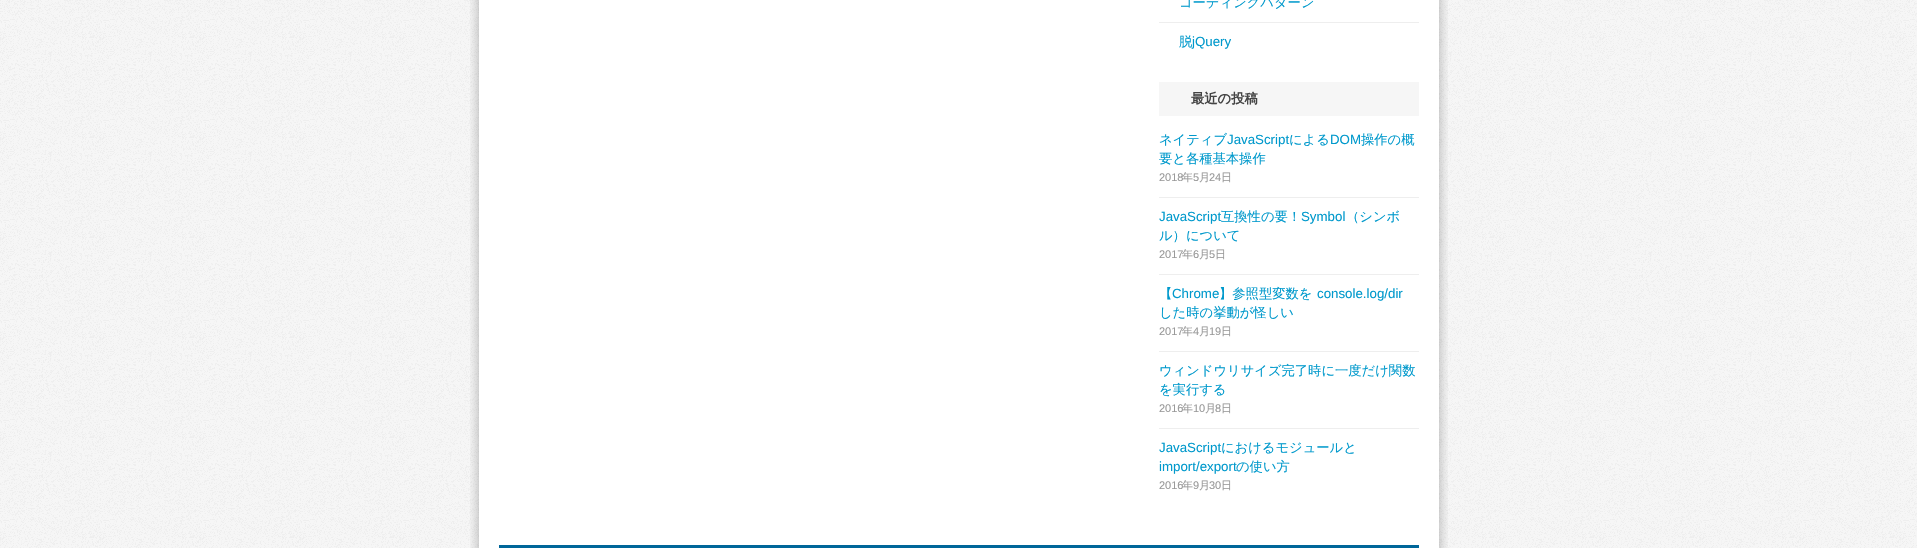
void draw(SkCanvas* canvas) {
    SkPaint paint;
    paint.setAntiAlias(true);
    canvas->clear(0xFFFFFFFF);
    canvas->drawImageRect(SkImages::DeferredFromEncodedData(SkData::MakeFromFileName("img1.png")), SkRect::MakeXYWH(0, 0, 1917, 548), SkSamplingOptions());
    canvas->drawImageRect(SkImages::DeferredFromEncodedData(SkData::MakeFromFileName("img2.png")), SkRect::MakeXYWH(470, 0, 978, 548), SkSamplingOptions());
    SkFont font1(fontMgr->matchFamilyStyle("WenQuanYi Zen Hei", SkFontStyle(500, SkFontStyle::kNormal_Width, SkFontStyle::kUpright_Slant)), 13.3f);
    font1.setSubpixel(true);
    paint.setColor(0xFF0099CC);
    canvas->drawString("コーディングパターン", 1179, 7, font1, paint);
    paint.setColor(0xFFEEEEEE);
    canvas->drawRect(SkRect::MakeXYWH(1159, 22, 260, 1), paint);
    paint.setColor(0xFF0099CC);
    canvas->drawString("脱", 1179, 46, font1, paint);
    SkFont font2(fontMgr->matchFamilyStyle("Liberation Sans", SkFontStyle::Normal()), 13.3f);
    font2.setSubpixel(true);
    canvas->drawString("jQuery", 1192, 46, font2, paint);
    paint.setColor(0xFFF6F6F6);
    canvas->drawRect(SkRect::MakeXYWH(1159, 82, 260, 34), paint);
    SkFont font3(fontMgr->matchFamilyStyle("WenQuanYi Zen Hei", SkFontStyle::Bold()), 13.3f);
    font3.setSubpixel(true);
    paint.setColor(0xFF444444);
    canvas->drawString("最近の投稿", 1191, 103, font3, paint);
    paint.setColor(0xFF0099CC);
    canvas->drawString("ネイティブ", 1159, 144, font1, paint);
    canvas->drawString("JavaScript", 1227, 144, font2, paint);
    canvas->drawString("による", 1289, 144, font1, paint);
    canvas->drawString("DOM", 1330, 144, font2, paint);
    canvas->drawString("操作の概", 1361, 144, font1, paint);
    canvas->drawString("要と各種基本操作", 1159, 163, font1, paint);
    SkFont font4(fontMgr->matchFamilyStyle("Liberation Sans", SkFontStyle::Normal()), 11);
    font4.setSubpixel(true);
    paint.setColor(0xFF999999);
    canvas->drawString("2018", 1159, 181, font4, paint);
    SkFont font5(fontMgr->matchFamilyStyle("WenQuanYi Zen Hei", SkFontStyle(500, SkFontStyle::kNormal_Width, SkFontStyle::kUpright_Slant)), 11);
    font5.setSubpixel(true);
    canvas->drawString("年", 1182, 181, font5, paint);
    canvas->drawString("5", 1193, 181, font4, paint);
    canvas->drawString("月", 1199, 181, font5, paint);
    canvas->drawString("24", 1209, 181, font4, paint);
    canvas->drawString("日", 1221, 181, font5, paint);
    paint.setColor(0xFFEEEEEE);
    canvas->drawRect(SkRect::MakeXYWH(1159, 197, 260, 1), paint);
    paint.setColor(0xFF0099CC);
    canvas->drawString("JavaScript", 1159, 221, font2, paint);
    canvas->drawString("互換性の要！", 1221, 221, font1, paint);
    canvas->drawString("Symbol", 1301, 221, font2, paint);
    canvas->drawString("（シンボ", 1346, 221, font1, paint);
    canvas->drawString("ル）について", 1159, 240, font1, paint);
    paint.setColor(0xFF999999);
    canvas->drawString("2017", 1159, 258, font4, paint);
    canvas->drawString("年", 1182, 258, font5, paint);
    canvas->drawString("6", 1193, 258, font4, paint);
    canvas->drawString("月", 1199, 258, font5, paint);
    canvas->drawString("5", 1209, 258, font4, paint);
    canvas->drawString("日", 1215, 258, font5, paint);
    paint.setColor(0xFFEEEEEE);
    canvas->drawRect(SkRect::MakeXYWH(1159, 274, 260, 1), paint);
    paint.setColor(0xFF0099CC);
    canvas->drawString("【", 1159, 298, font1, paint);
    canvas->drawString("Chrome", 1172, 298, font2, paint);
    canvas->drawString("】参照型変数を", 1219, 298, font1, paint);
    canvas->drawString("console.log/dir", 1317, 298, font2, paint);
    canvas->drawString("した時の挙動が怪しい", 1159, 317, font1, paint);
    paint.setColor(0xFF999999);
    canvas->drawString("2017", 1159, 335, font4, paint);
    canvas->drawString("年", 1182, 335, font5, paint);
    canvas->drawString("4", 1193, 335, font4, paint);
    canvas->drawString("月", 1199, 335, font5, paint);
    canvas->drawString("19", 1209, 335, font4, paint);
    canvas->drawString("日", 1221, 335, font5, paint);
    paint.setColor(0xFFEEEEEE);
    canvas->drawRect(SkRect::MakeXYWH(1159, 351, 260, 1), paint);
    paint.setColor(0xFF0099CC);
    canvas->drawString("ウィンドウリサイズ完了時に一度だけ関数", 1159, 375, font1, paint);
    canvas->drawString("を実行する", 1159, 394, font1, paint);
    paint.setColor(0xFF999999);
    canvas->drawString("2016", 1159, 412, font4, paint);
    canvas->drawString("年", 1182, 412, font5, paint);
    canvas->drawString("10", 1193, 412, font4, paint);
    canvas->drawString("月", 1205, 412, font5, paint);
    canvas->drawString("8", 1215, 412, font4, paint);
    canvas->drawString("日", 1221, 412, font5, paint);
    paint.setColor(0xFFEEEEEE);
    canvas->drawRect(SkRect::MakeXYWH(1159, 428, 260, 1), paint);
    paint.setColor(0xFF0099CC);
    canvas->drawString("JavaScript", 1159, 452, font2, paint);
    canvas->drawString("におけるモジュールと", 1221, 452, font1, paint);
    canvas->drawString("import/export", 1159, 471, font2, paint);
    canvas->drawString("の使い方", 1236, 471, font1, paint);
    paint.setColor(0xFF999999);
    canvas->drawString("2016", 1159, 489, font4, paint);
    canvas->drawString("年", 1182, 489, font5, paint);
    canvas->drawString("9", 1193, 489, font4, paint);
    canvas->drawString("月", 1199, 489, font5, paint);
    canvas->drawString("30", 1209, 489, font4, paint);
    canvas->drawString("日", 1221, 489, font5, paint);
    paint.setColor(0xFF006699);
    canvas->drawRect(SkRect::MakeXYWH(499, 545, 920, 3), paint);
}
